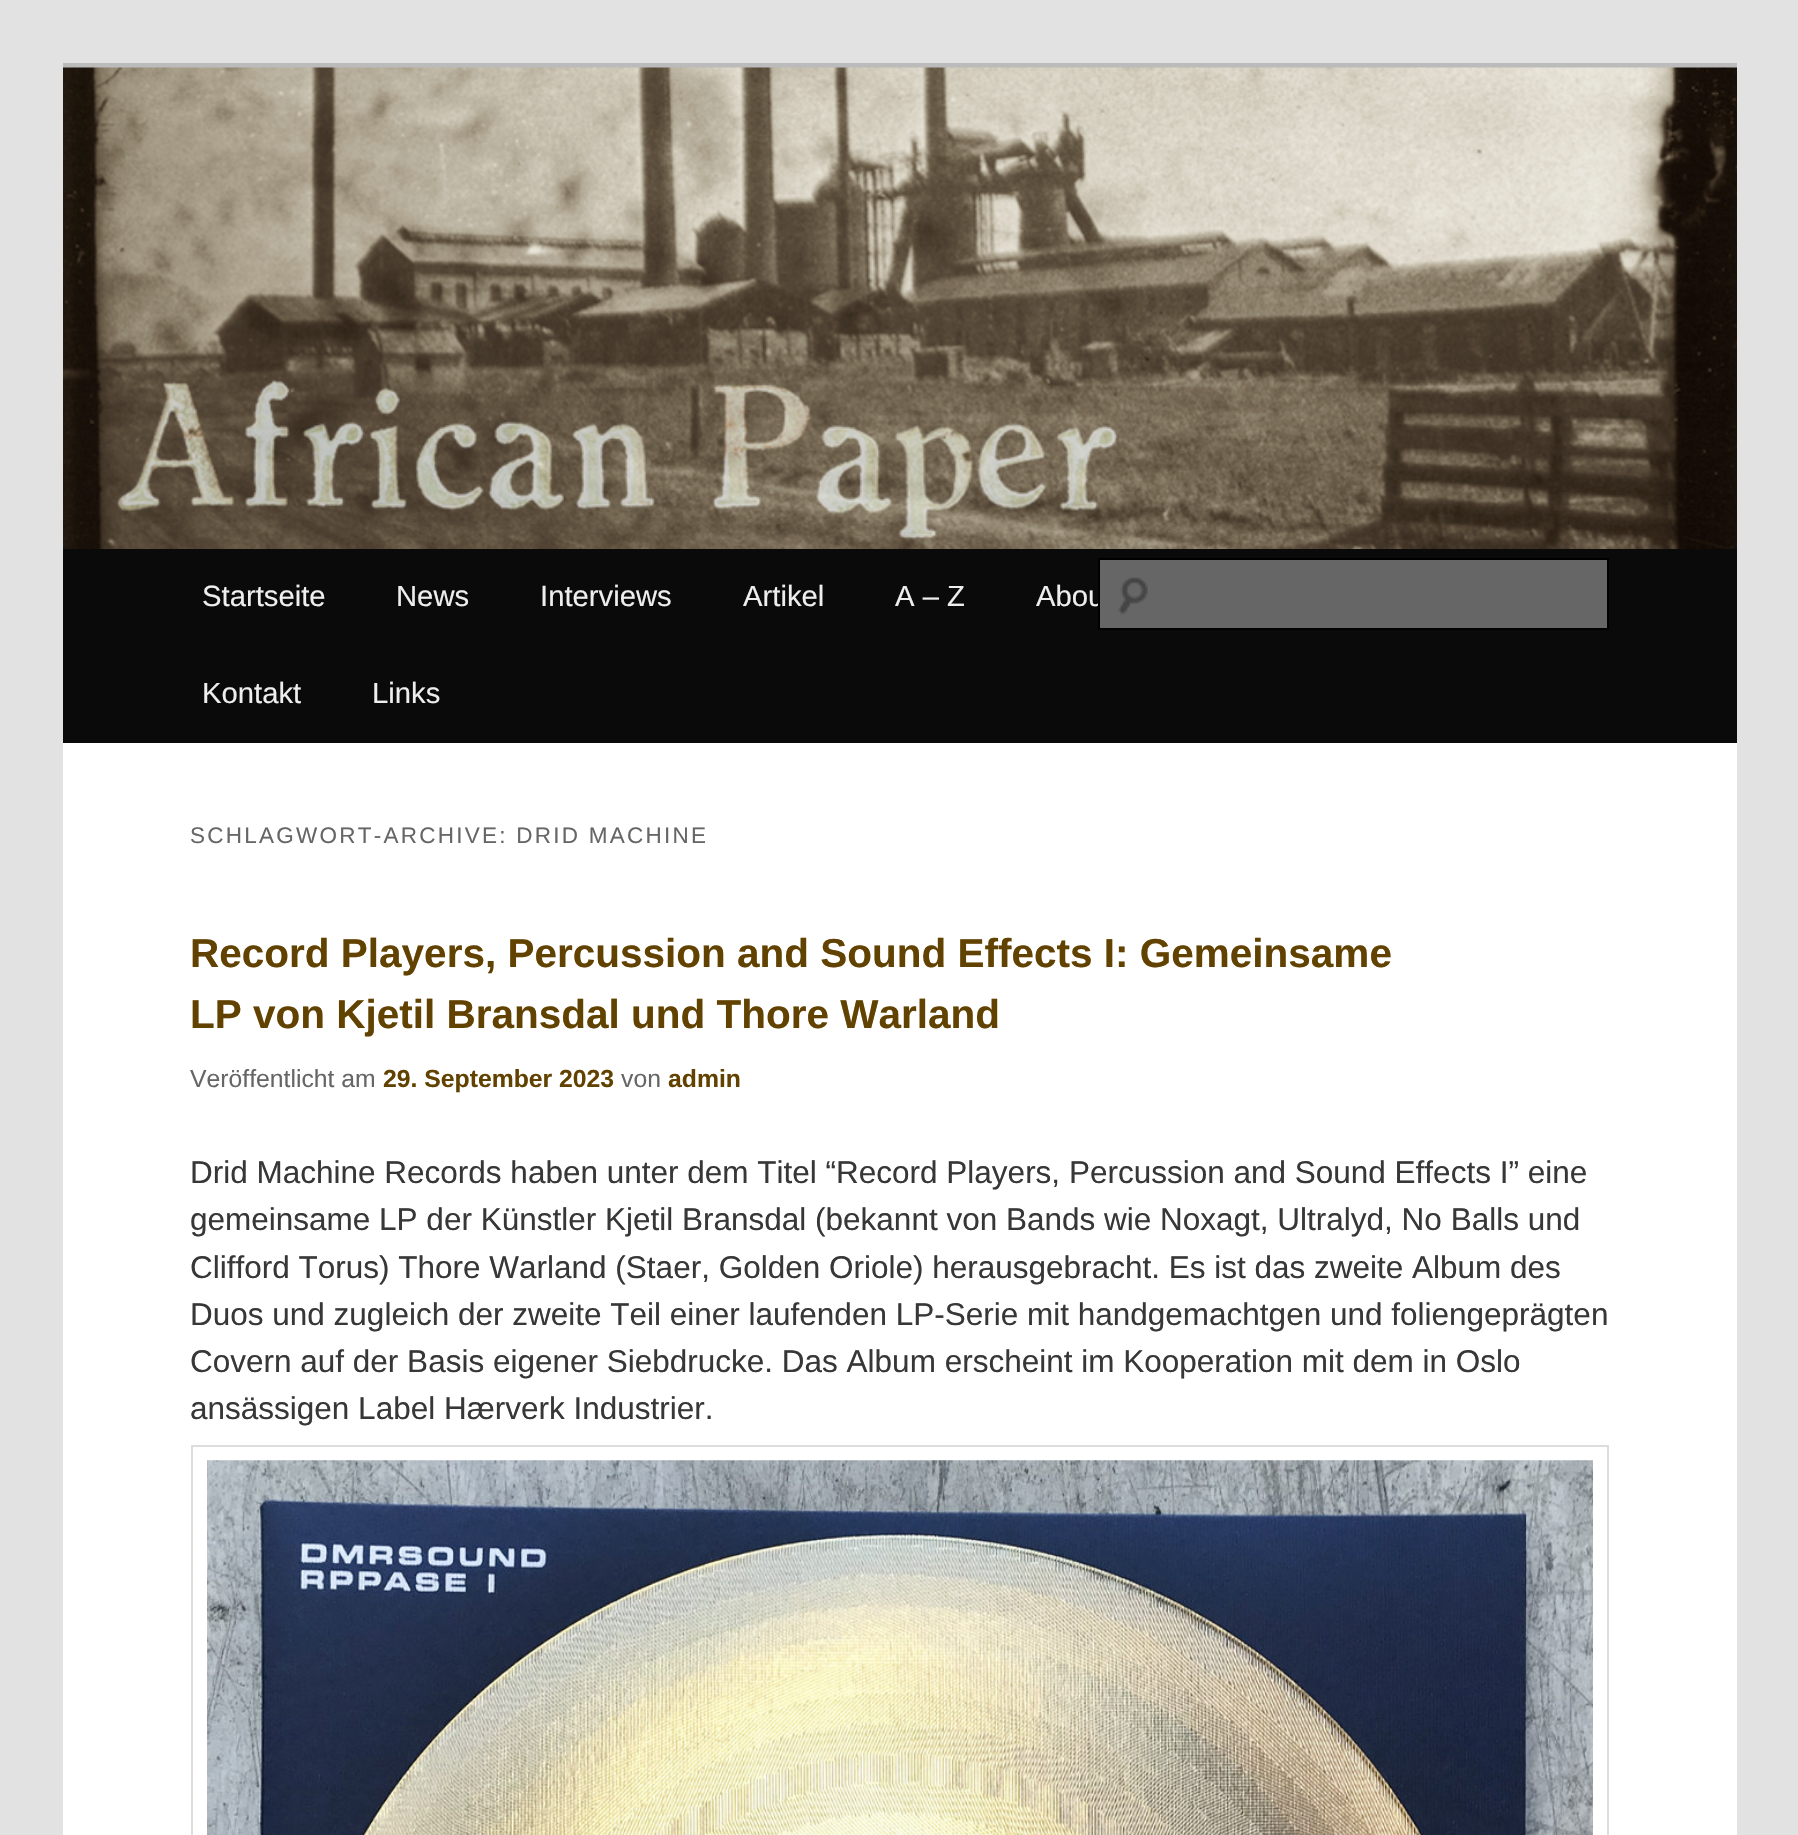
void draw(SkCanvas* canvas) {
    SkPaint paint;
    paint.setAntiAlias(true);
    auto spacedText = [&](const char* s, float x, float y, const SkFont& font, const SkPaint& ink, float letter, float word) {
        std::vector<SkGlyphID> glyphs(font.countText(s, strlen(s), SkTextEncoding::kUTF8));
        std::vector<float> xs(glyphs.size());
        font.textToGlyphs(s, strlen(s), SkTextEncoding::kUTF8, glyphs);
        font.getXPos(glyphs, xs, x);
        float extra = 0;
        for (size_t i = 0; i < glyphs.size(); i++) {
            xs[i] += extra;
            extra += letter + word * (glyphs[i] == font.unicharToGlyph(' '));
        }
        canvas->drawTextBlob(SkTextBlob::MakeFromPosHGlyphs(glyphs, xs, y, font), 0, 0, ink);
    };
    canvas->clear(0xFFE2E2E2);
    paint.setColor(0xFFFFFFFF);
    canvas->drawRect(SkRect::MakeXYWH(63, 743, 1674, 1092), paint);
    paint.setColor(0xFFBBBBBB);
    canvas->drawRect(SkRect::MakeXYWH(63, 63, 1674, 5), paint);
    canvas->drawImageRect(SkImages::DeferredFromEncodedData(SkData::MakeFromFileName("img1.png")), SkRect::MakeXYWH(63, 67, 1674, 482), SkSamplingOptions());
    paint.setColor(0xFF0A0A0A);
    canvas->drawRect(SkRect::MakeXYWH(63, 549, 1674, 194), paint);
    SkFont font1(fontMgr->matchFamilyStyle("Liberation Sans", SkFontStyle::Normal()), 29.25f);
    font1.setSubpixel(true);
    paint.setColor(0xFFEEEEEE);
    canvas->drawString("Startseite", 202, 606, font1, paint);
    canvas->drawString("News", 396, 606, font1, paint);
    canvas->drawString("Interviews", 540, 606, font1, paint);
    canvas->drawString("Artikel", 743, 606, font1, paint);
    canvas->drawString("A – Z", 895, 606, font1, paint);
    canvas->drawString("Abou", 1036, 606, font1, paint);
    canvas->drawString("Kontakt", 202, 703, font1, paint);
    canvas->drawString("Links", 372, 703, font1, paint);
    paint.setColor(0xFF666666);
    canvas->drawRect(SkRect::MakeXYWH(1100, 560, 507, 68), paint);
    canvas->drawImageRect(SkImages::DeferredFromEncodedData(SkData::MakeFromFileName("img2.png")), SkRect::MakeXYWH(1118, 577, 30, 38), SkSamplingOptions());
    paint.setStyle(SkPaint::kStroke_Style);
    paint.setStrokeWidth(2);
    paint.setColor(0xFF000000);
    canvas->drawRect(SkRect::MakeXYWH(1099, 559, 509, 70), paint);
    SkFont font2(fontMgr->matchFamilyStyle("Liberation Sans", SkFontStyle::Normal()), 22.5f);
    font2.setSubpixel(true);
    paint.setStyle(SkPaint::kFill_Style);
    paint.setColor(0xFF666666);
    spacedText("SCHLAGWORT-ARCHIVE: DRID MACHINE", 190, 843, font2, paint, 2.25f, 0);
    SkFont font3(fontMgr->matchFamilyStyle("Liberation Sans", SkFontStyle::Bold()), 40.5f);
    font3.setSubpixel(true);
    paint.setColor(0xFF624200);
    canvas->drawString("Record Players, Percussion and Sound Effects I: Gemeinsame", 190, 967, font3, paint);
    canvas->drawString("LP von Kjetil Bransdal und Thore Warland", 190, 1028, font3, paint);
    SkFont font4(fontMgr->matchFamilyStyle("Liberation Sans", SkFontStyle::Normal()), 24.75f);
    font4.setSubpixel(true);
    paint.setColor(0xFF666666);
    canvas->drawString("Veröffentlicht am", 190, 1087, font4, paint);
    SkFont font5(fontMgr->matchFamilyStyle("Liberation Sans", SkFontStyle::Bold()), 24.75f);
    font5.setSubpixel(true);
    paint.setColor(0xFF624200);
    canvas->drawString("29. September 2023", 383, 1087, font5, paint);
    paint.setColor(0xFF666666);
    canvas->drawString("von", 621, 1087, font4, paint);
    paint.setColor(0xFF624200);
    canvas->drawString("admin", 668, 1087, font5, paint);
    SkFont font6(fontMgr->matchFamilyStyle("Liberation Sans", SkFontStyle::Normal()), 31.5f);
    font6.setSubpixel(true);
    paint.setColor(0xFF373737);
    canvas->drawString("Drid Machine Records haben unter dem Titel “Record Players, Percussion and Sound Effects I” eine", 190, 1183, font6, paint);
    canvas->drawString("gemeinsame LP der Künstler Kjetil Bransdal (bekannt von Bands wie Noxagt, Ultralyd, No Balls und", 190, 1230, font6, paint);
    canvas->drawString("Clifford Torus) Thore Warland (Staer, Golden Oriole) herausgebracht. Es ist das zweite Album des", 190, 1278, font6, paint);
    canvas->drawString("Duos und zugleich der zweite Teil einer laufenden LP-Serie mit handgemachtgen und foliengeprägten", 190, 1325, font6, paint);
    canvas->drawString("Covern auf der Basis eigener Siebdrucke. Das Album erscheint im Kooperation mit dem in Oslo", 190, 1372, font6, paint);
    canvas->drawString("ansässigen Label Hærverk Industrier.", 190, 1419, font6, paint);
    paint.setStyle(SkPaint::kStroke_Style);
    paint.setColor(0xFFDDDDDD);
    canvas->drawRect(SkRect::MakeXYWH(192, 1446, 1416, 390), paint);
    canvas->drawImageRect(SkImages::DeferredFromEncodedData(SkData::MakeFromFileName("img3.png")), SkRect::MakeXYWH(207, 1460, 1386, 375), SkSamplingOptions());
}
